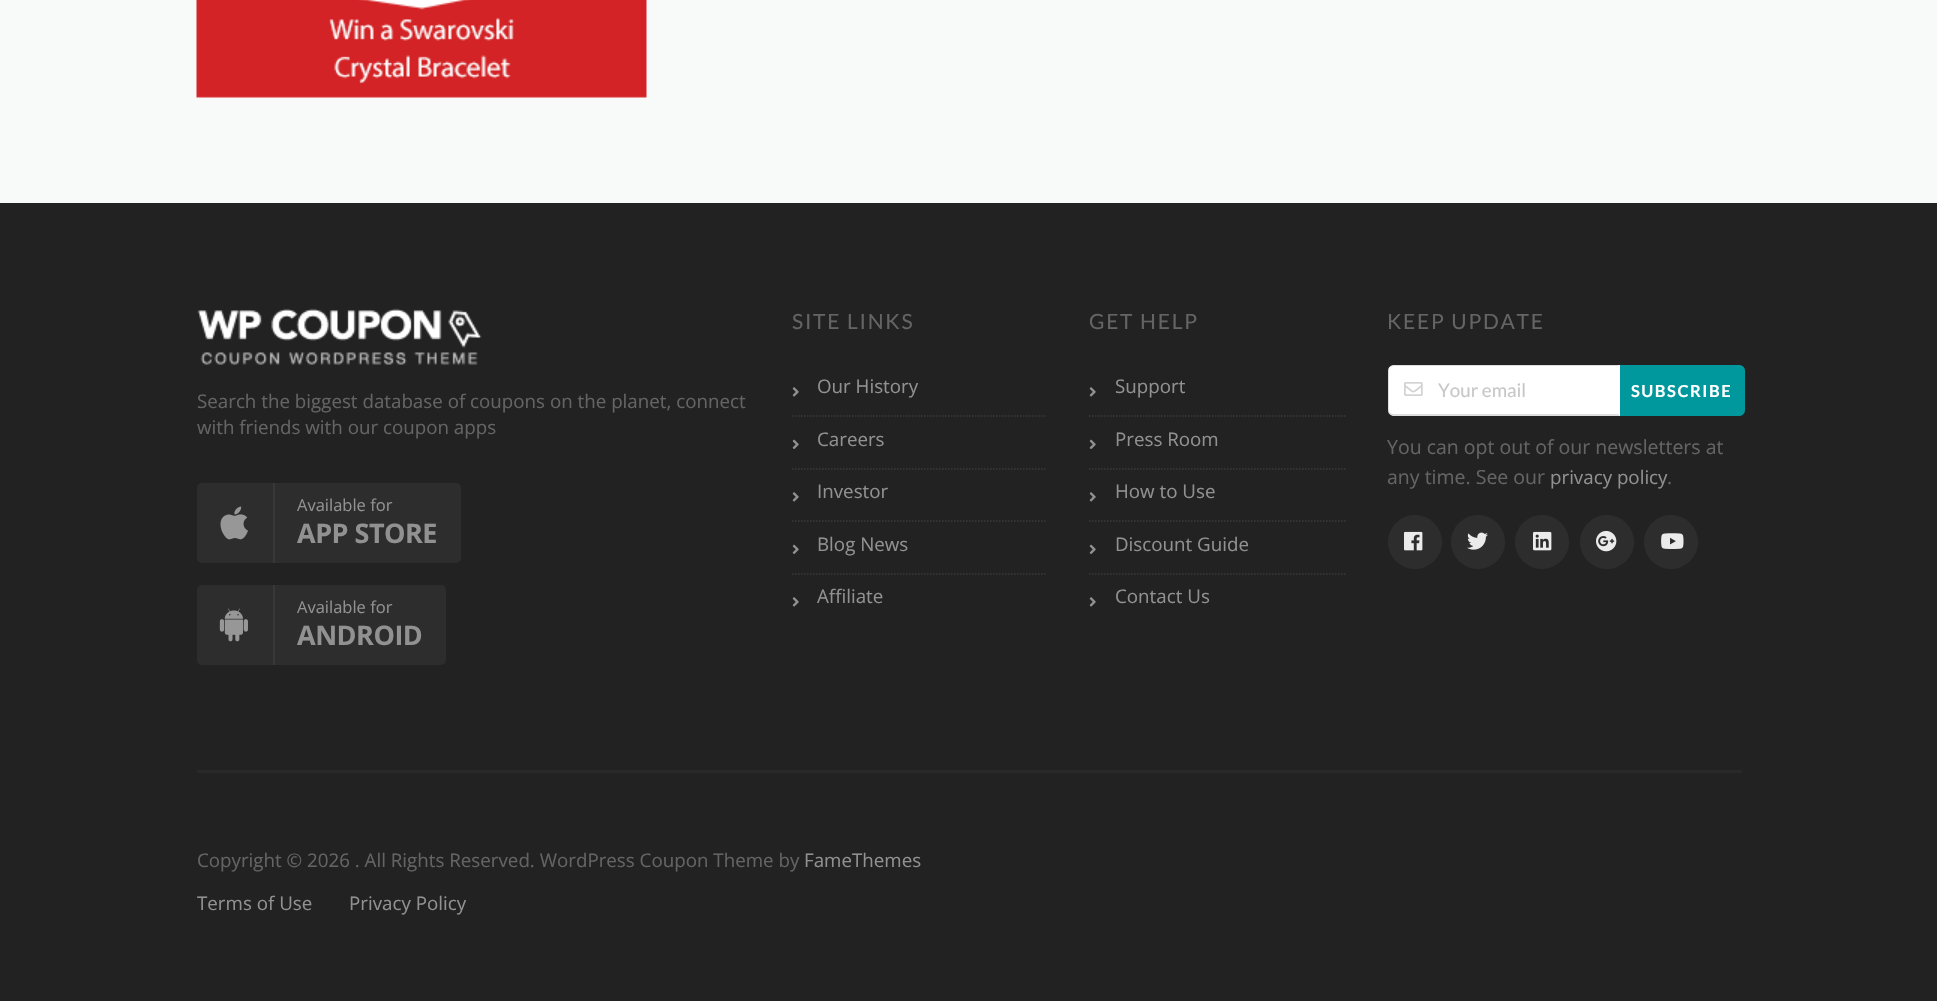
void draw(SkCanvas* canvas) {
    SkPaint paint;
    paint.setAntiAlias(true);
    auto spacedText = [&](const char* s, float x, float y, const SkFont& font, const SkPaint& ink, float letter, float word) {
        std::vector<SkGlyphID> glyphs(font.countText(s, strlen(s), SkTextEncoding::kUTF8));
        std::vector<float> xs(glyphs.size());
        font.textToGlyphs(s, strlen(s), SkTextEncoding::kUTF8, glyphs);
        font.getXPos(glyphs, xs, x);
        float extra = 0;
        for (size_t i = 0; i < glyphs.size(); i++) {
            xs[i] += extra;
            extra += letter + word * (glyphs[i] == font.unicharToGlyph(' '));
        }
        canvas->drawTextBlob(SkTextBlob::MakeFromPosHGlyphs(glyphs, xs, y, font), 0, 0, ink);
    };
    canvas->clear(0xFFF8F9F9);
    canvas->drawImageRect(SkImages::DeferredFromEncodedData(SkData::MakeFromFileName("img1.png")), SkRect::MakeXYWH(196, 0, 451, 98), SkSamplingOptions());
    paint.setColor(0xFF222222);
    canvas->drawRect(SkRect::MakeXYWH(0, 203, 1937, 798), paint);
    canvas->drawImageRect(SkImages::DeferredFromEncodedData(SkData::MakeFromFileName("img2.png")), SkRect::MakeXYWH(197, 308, 285, 57), SkSamplingOptions());
    SkFont font1(fontMgr->matchFamilyStyle("Open Sans", SkFontStyle::Normal()), 18.75f);
    font1.setSubpixel(true);
    paint.setColor(0xFF646464);
    canvas->drawString("Search the biggest database of coupons on the planet, connect", 197, 408, font1, paint);
    canvas->drawString("with friends with our coupon apps", 197, 434, font1, paint);
    paint.setColor(0xFF2D2D2D);
    canvas->drawRoundRect(SkRect::MakeXYWH(197, 483, 264, 80), 5, 5, paint);
    paint.setColor(0xFF383838);
    canvas->drawRect(SkRect::MakeXYWH(273, 483, 2, 80), paint);
    canvas->drawImageRect(SkImages::DeferredFromEncodedData(SkData::MakeFromFileName("img3.png")), SkRect::MakeXYWH(220, 506, 28, 34), SkSamplingOptions());
    SkFont font2(fontMgr->matchFamilyStyle("Open Sans", SkFontStyle::Normal()), 16.5f);
    font2.setSubpixel(true);
    paint.setColor(0xFF919191);
    canvas->drawString("Available for", 297, 511, font2, paint);
    SkFont font3(fontMgr->matchFamilyStyle("Open Sans", SkFontStyle::Bold()), 27);
    font3.setSubpixel(true);
    spacedText("APP STORE", 297, 543, font3, paint, -0.5f, 0);
    paint.setColor(0xFF2D2D2D);
    canvas->drawRoundRect(SkRect::MakeXYWH(197, 585, 249, 80), 5, 5, paint);
    paint.setColor(0xFF383838);
    canvas->drawRect(SkRect::MakeXYWH(273, 585, 2, 80), paint);
    canvas->drawImageRect(SkImages::DeferredFromEncodedData(SkData::MakeFromFileName("img4.png")), SkRect::MakeXYWH(219, 608, 29, 34), SkSamplingOptions());
    paint.setColor(0xFF919191);
    canvas->drawString("Available for", 297, 613, font2, paint);
    spacedText("ANDROID", 297, 645, font3, paint, -0.5f, 0);
    SkFont font4(fontMgr->matchFamilyStyle("Lato", SkFontStyle::Normal()), 21);
    font4.setSubpixel(true);
    paint.setColor(0xFF646464);
    spacedText("SITE LINKS", 792, 329, font4, paint, 1.75f, 0);
    paint.setStyle(SkPaint::kStroke_Style);
    paint.setStrokeWidth(1.5f);
    paint.setColor(0xFF383838);
    paint.setPathEffect(SkDashPathEffect::Make({{1.5f, 1.5f}}, 0));
    canvas->drawPath(SkPathBuilder().moveTo(792, 416).lineTo(1047, 416).detach(), paint);
    paint.setPathEffect(nullptr);
    canvas->drawImageRect(SkImages::DeferredFromEncodedData(SkData::MakeFromFileName("img5.png")), SkRect::MakeXYWH(792, 387, 7, 10), SkSamplingOptions());
    paint.setStyle(SkPaint::kFill_Style);
    paint.setColor(0xFF919191);
    canvas->drawString("Our History", 817, 393, font1, paint);
    paint.setStyle(SkPaint::kStroke_Style);
    paint.setColor(0xFF383838);
    paint.setPathEffect(SkDashPathEffect::Make({{1.5f, 1.5f}}, 0));
    canvas->drawPath(SkPathBuilder().moveTo(792, 469).lineTo(1047, 469).detach(), paint);
    paint.setPathEffect(nullptr);
    canvas->drawImageRect(SkImages::DeferredFromEncodedData(SkData::MakeFromFileName("img6.png")), SkRect::MakeXYWH(792, 439, 7, 10), SkSamplingOptions());
    paint.setStyle(SkPaint::kFill_Style);
    paint.setColor(0xFF919191);
    canvas->drawString("Careers", 817, 446, font1, paint);
    paint.setStyle(SkPaint::kStroke_Style);
    paint.setColor(0xFF383838);
    paint.setPathEffect(SkDashPathEffect::Make({{1.5f, 1.5f}}, 0));
    canvas->drawPath(SkPathBuilder().moveTo(792, 521).lineTo(1047, 521).detach(), paint);
    paint.setPathEffect(nullptr);
    canvas->drawImageRect(SkImages::DeferredFromEncodedData(SkData::MakeFromFileName("img5.png")), SkRect::MakeXYWH(792, 492, 7, 10), SkSamplingOptions());
    paint.setStyle(SkPaint::kFill_Style);
    paint.setColor(0xFF919191);
    canvas->drawString("Investor", 817, 498, font1, paint);
    paint.setStyle(SkPaint::kStroke_Style);
    paint.setColor(0xFF383838);
    paint.setPathEffect(SkDashPathEffect::Make({{1.5f, 1.5f}}, 0));
    canvas->drawPath(SkPathBuilder().moveTo(792, 574).lineTo(1047, 574).detach(), paint);
    paint.setPathEffect(nullptr);
    canvas->drawImageRect(SkImages::DeferredFromEncodedData(SkData::MakeFromFileName("img6.png")), SkRect::MakeXYWH(792, 544, 7, 10), SkSamplingOptions());
    paint.setStyle(SkPaint::kFill_Style);
    paint.setColor(0xFF919191);
    canvas->drawString("Blog News", 817, 551, font1, paint);
    canvas->drawImageRect(SkImages::DeferredFromEncodedData(SkData::MakeFromFileName("img5.png")), SkRect::MakeXYWH(792, 597, 7, 10), SkSamplingOptions());
    canvas->drawString("Affiliate", 817, 603, font1, paint);
    paint.setColor(0xFF646464);
    spacedText("GET HELP", 1089, 329, font4, paint, 1.75f, 0);
    paint.setStyle(SkPaint::kStroke_Style);
    paint.setColor(0xFF383838);
    paint.setPathEffect(SkDashPathEffect::Make({{1.5f, 1.5f}}, 0));
    canvas->drawPath(SkPathBuilder().moveTo(1089, 416).lineTo(1345.5f, 416).detach(), paint);
    paint.setPathEffect(nullptr);
    canvas->drawImageRect(SkImages::DeferredFromEncodedData(SkData::MakeFromFileName("img5.png")), SkRect::MakeXYWH(1089, 387, 7, 10), SkSamplingOptions());
    paint.setStyle(SkPaint::kFill_Style);
    paint.setColor(0xFF919191);
    canvas->drawString("Support", 1115, 393, font1, paint);
    paint.setStyle(SkPaint::kStroke_Style);
    paint.setColor(0xFF383838);
    paint.setPathEffect(SkDashPathEffect::Make({{1.5f, 1.5f}}, 0));
    canvas->drawPath(SkPathBuilder().moveTo(1089, 469).lineTo(1345.5f, 469).detach(), paint);
    paint.setPathEffect(nullptr);
    canvas->drawImageRect(SkImages::DeferredFromEncodedData(SkData::MakeFromFileName("img6.png")), SkRect::MakeXYWH(1089, 439, 7, 10), SkSamplingOptions());
    paint.setStyle(SkPaint::kFill_Style);
    paint.setColor(0xFF919191);
    canvas->drawString("Press Room", 1115, 446, font1, paint);
    paint.setStyle(SkPaint::kStroke_Style);
    paint.setColor(0xFF383838);
    paint.setPathEffect(SkDashPathEffect::Make({{1.5f, 1.5f}}, 0));
    canvas->drawPath(SkPathBuilder().moveTo(1089, 521).lineTo(1345.5f, 521).detach(), paint);
    paint.setPathEffect(nullptr);
    canvas->drawImageRect(SkImages::DeferredFromEncodedData(SkData::MakeFromFileName("img5.png")), SkRect::MakeXYWH(1089, 492, 7, 10), SkSamplingOptions());
    paint.setStyle(SkPaint::kFill_Style);
    paint.setColor(0xFF919191);
    canvas->drawString("How to Use", 1115, 498, font1, paint);
    paint.setStyle(SkPaint::kStroke_Style);
    paint.setColor(0xFF383838);
    paint.setPathEffect(SkDashPathEffect::Make({{1.5f, 1.5f}}, 0));
    canvas->drawPath(SkPathBuilder().moveTo(1089, 574).lineTo(1345.5f, 574).detach(), paint);
    paint.setPathEffect(nullptr);
    canvas->drawImageRect(SkImages::DeferredFromEncodedData(SkData::MakeFromFileName("img6.png")), SkRect::MakeXYWH(1089, 544, 7, 10), SkSamplingOptions());
    paint.setStyle(SkPaint::kFill_Style);
    paint.setColor(0xFF919191);
    canvas->drawString("Discount Guide", 1115, 551, font1, paint);
    canvas->drawImageRect(SkImages::DeferredFromEncodedData(SkData::MakeFromFileName("img5.png")), SkRect::MakeXYWH(1089, 597, 7, 10), SkSamplingOptions());
    canvas->drawString("Contact Us", 1115, 603, font1, paint);
    paint.setColor(0xFF646464);
    spacedText("KEEP UPDATE", 1387, 329, font4, paint, 1.75f, 0);
    paint.setColor(0xFFFFFFFF);
    canvas->drawPath(SkPathBuilder().moveTo(1394, 365).lineTo(1620, 365).lineTo(1620, 416).lineTo(1394, 416).cubicTo(1390.5f, 416, 1388, 413.5f, 1388, 410).lineTo(1388, 371).cubicTo(1388, 367.5f, 1390.5f, 365, 1394, 365).close().detach(), paint);
    canvas->drawImageRect(SkImages::DeferredFromEncodedData(SkData::MakeFromFileName("img7.png")), SkRect::MakeXYWH(1404, 382, 19, 14), SkSamplingOptions());
    paint.setColor(0x26222426);
    canvas->drawPath(SkPathBuilder().moveTo(1394, 366).cubicTo(1392, 366, 1391, 367, 1390, 367).lineTo(1389, 366).lineTo(1391, 364).lineTo(1620, 364).lineTo(1618, 366).close().detach(), paint);
    canvas->drawPath(SkPathBuilder().moveTo(1620, 416).lineTo(1391, 416).lineTo(1389, 414).lineTo(1390, 413).lineTo(1393, 414).lineTo(1618, 414).close().detach(), paint);
    canvas->drawPath(SkPathBuilder().moveTo(1389, 414).cubicTo(1388, 413, 1388, 411, 1388, 410).lineTo(1388, 370).cubicTo(1388, 369, 1388, 367, 1389, 366).lineTo(1390, 367).cubicTo(1389, 368, 1389, 369, 1389, 370).lineTo(1389, 410).cubicTo(1389, 411, 1389, 412, 1390, 413).close().detach(), paint);
    SkFont font5(fontMgr->matchFamilyStyle("Lato", SkFontStyle::Normal()), 18.75f);
    font5.setSubpixel(true);
    paint.setColor(0xFFC7C7C7);
    canvas->drawString("Your email", 1438, 397, font5, paint);
    paint.setColor(0xFF00979D);
    canvas->drawPath(SkPathBuilder().moveTo(1620, 365).lineTo(1739, 365).cubicTo(1742.5f, 365, 1745, 367.5f, 1745, 371).lineTo(1745, 410).cubicTo(1745, 413.5f, 1742.5f, 416, 1739, 416).lineTo(1620, 416).close().detach(), paint);
    SkFont font6(fontMgr->matchFamilyStyle("Lato", SkFontStyle::Bold()), 16.5f);
    font6.setSubpixel(true);
    paint.setColor(0xFFFFFFFF);
    spacedText("SUBSCRIBE", 1631, 397, font6, paint, 1.5f, 0);
    SkFont font7(fontMgr->matchFamilyStyle("Open Sans", SkFontStyle::Normal()), 19.5f);
    font7.setSubpixel(true);
    paint.setColor(0xFF646464);
    canvas->drawString("You can opt out of our newsletters at", 1387, 454, font7, paint);
    canvas->drawString("any time. See our", 1387, 484, font7, paint);
    paint.setColor(0xFF919191);
    canvas->drawString("privacy policy", 1550, 484, font1, paint);
    paint.setColor(0xFF646464);
    canvas->drawString(".", 1667, 484, font7, paint);
    paint.setColor(0xFF2D2D2D);
    canvas->drawCircle(1415, 542, 27, paint);
    canvas->drawImageRect(SkImages::DeferredFromEncodedData(SkData::MakeFromFileName("img8.png")), SkRect::MakeXYWH(1404, 531, 19, 20), SkSamplingOptions());
    canvas->drawCircle(1478, 542, 27, paint);
    canvas->drawImageRect(SkImages::DeferredFromEncodedData(SkData::MakeFromFileName("img9.png")), SkRect::MakeXYWH(1467, 532, 21, 18), SkSamplingOptions());
    canvas->drawCircle(1542, 542, 27, paint);
    canvas->drawImageRect(SkImages::DeferredFromEncodedData(SkData::MakeFromFileName("img10.png")), SkRect::MakeXYWH(1533, 531, 19, 20), SkSamplingOptions());
    canvas->drawCircle(1607, 542, 27, paint);
    canvas->drawImageRect(SkImages::DeferredFromEncodedData(SkData::MakeFromFileName("img11.png")), SkRect::MakeXYWH(1596, 530, 21, 22), SkSamplingOptions());
    canvas->drawCircle(1671, 542, 27, paint);
    canvas->drawImageRect(SkImages::DeferredFromEncodedData(SkData::MakeFromFileName("img12.png")), SkRect::MakeXYWH(1661, 533, 23, 16), SkSamplingOptions());
    paint.setColor(0xFF292929);
    canvas->drawRect(SkRect::MakeXYWH(197, 770, 1545, 3), paint);
    paint.setColor(0xFF646464);
    canvas->drawString("Copyright © 2026 . All Rights Reserved. WordPress Coupon Theme by", 197, 867, font1, paint);
    paint.setColor(0xFF919191);
    canvas->drawString("FameThemes", 804, 867, font1, paint);
    canvas->drawString("Terms of Use", 197, 910, font1, paint);
    canvas->drawString("Privacy Policy", 349, 910, font1, paint);
}
